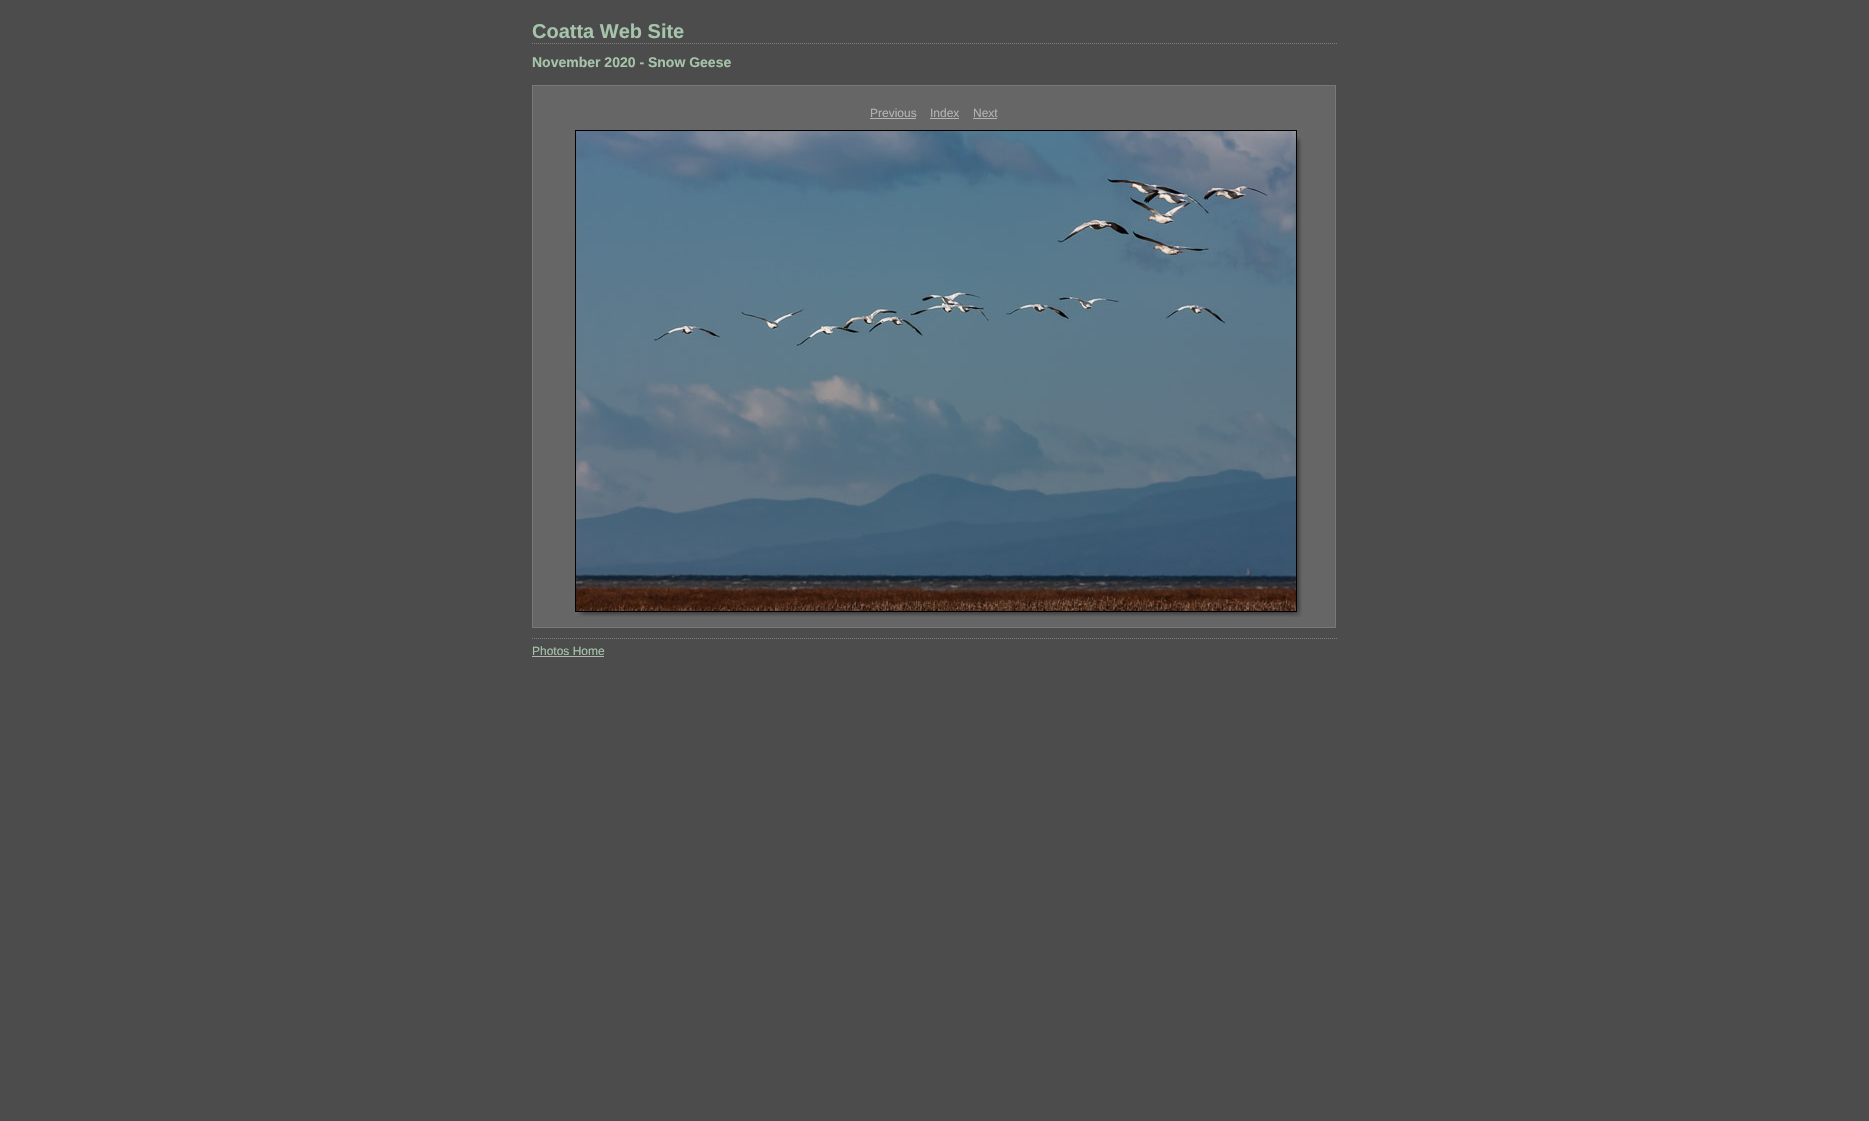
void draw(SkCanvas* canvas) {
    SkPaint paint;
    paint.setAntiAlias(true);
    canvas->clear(0xFF4C4C4C);
    paint.setStyle(SkPaint::kStroke_Style);
    paint.setStrokeWidth(1);
    paint.setColor(0xFF7F7F7F);
    paint.setPathEffect(SkDashPathEffect::Make({{1, 1}}, 0));
    canvas->drawPath(SkPathBuilder().moveTo(532, 43.5f).lineTo(1338, 43.5f).detach(), paint);
    paint.setPathEffect(nullptr);
    SkFont font1(fontMgr->matchFamilyStyle("Liberation Sans", SkFontStyle::Bold()), 20);
    font1.setSubpixel(true);
    paint.setStyle(SkPaint::kFill_Style);
    paint.setColor(0xFFA5C5AA);
    canvas->drawString("Coatta Web Site", 532, 38, font1, paint);
    SkFont font2(fontMgr->matchFamilyStyle("Liberation Sans", SkFontStyle::Bold()), 14);
    font2.setSubpixel(true);
    canvas->drawString("November 2020 - Snow Geese", 532, 67, font2, paint);
    paint.setStyle(SkPaint::kStroke_Style);
    paint.setColor(0xFF7F7F7F);
    paint.setPathEffect(SkDashPathEffect::Make({{1, 1}}, 0));
    canvas->drawPath(SkPathBuilder().moveTo(532, 638.5f).lineTo(1338, 638.5f).detach(), paint);
    paint.setPathEffect(nullptr);
    paint.setStyle(SkPaint::kFill_Style);
    paint.setColor(0xFF666666);
    canvas->drawRect(SkRect::MakeXYWH(532.5f, 85.5f, 803, 542), paint);
    paint.setStyle(SkPaint::kStroke_Style);
    paint.setColor(0xFF787878);
    canvas->drawRect(SkRect::MakeXYWH(532.5f, 85.5f, 803, 542), paint);
    SkFont font3(fontMgr->matchFamilyStyle("Liberation Sans", SkFontStyle::Normal()), 12);
    font3.setSubpixel(true);
    paint.setStyle(SkPaint::kFill_Style);
    paint.setColor(0xFFB3B3B3);
    canvas->drawString("Previous", 870, 117, font3, paint);
    canvas->drawRect(SkRect::MakeXYWH(870, 118, 46, 1), paint);
    canvas->drawString("Index", 930, 117, font3, paint);
    canvas->drawRect(SkRect::MakeXYWH(930, 118, 29, 1), paint);
    canvas->drawString("Next", 973, 117, font3, paint);
    canvas->drawRect(SkRect::MakeXYWH(973, 118, 24, 1), paint);
    canvas->drawImageRect(SkImages::DeferredFromEncodedData(SkData::MakeFromFileName("img1.png")), SkRect::MakeXYWH(585, 143, 717, 474), SkSamplingOptions());
    paint.setStyle(SkPaint::kStroke_Style);
    paint.setColor(0xFF000000);
    canvas->drawRect(SkRect::MakeXYWH(575.5f, 130.5f, 721, 481), paint);
    canvas->drawImageRect(SkImages::DeferredFromEncodedData(SkData::MakeFromFileName("img2.png")), SkRect::MakeXYWH(576, 131, 720, 480), SkSamplingOptions());
    canvas->drawImageRect(SkImages::DeferredFromEncodedData(SkData::MakeFromFileName("img3.png")), SkRect::MakeXYWH(1297, 136, 5, 7), SkSamplingOptions());
    canvas->drawImageRect(SkImages::DeferredFromEncodedData(SkData::MakeFromFileName("img4.png")), SkRect::MakeXYWH(578, 612, 7, 5), SkSamplingOptions());
    paint.setStyle(SkPaint::kFill_Style);
    paint.setColor(0xFFA5C5AA);
    canvas->drawString("Photos Home", 532, 655, font3, paint);
    paint.setColor(0xFFB3B3B3);
    canvas->drawRect(SkRect::MakeXYWH(532, 656, 72, 1), paint);
}
